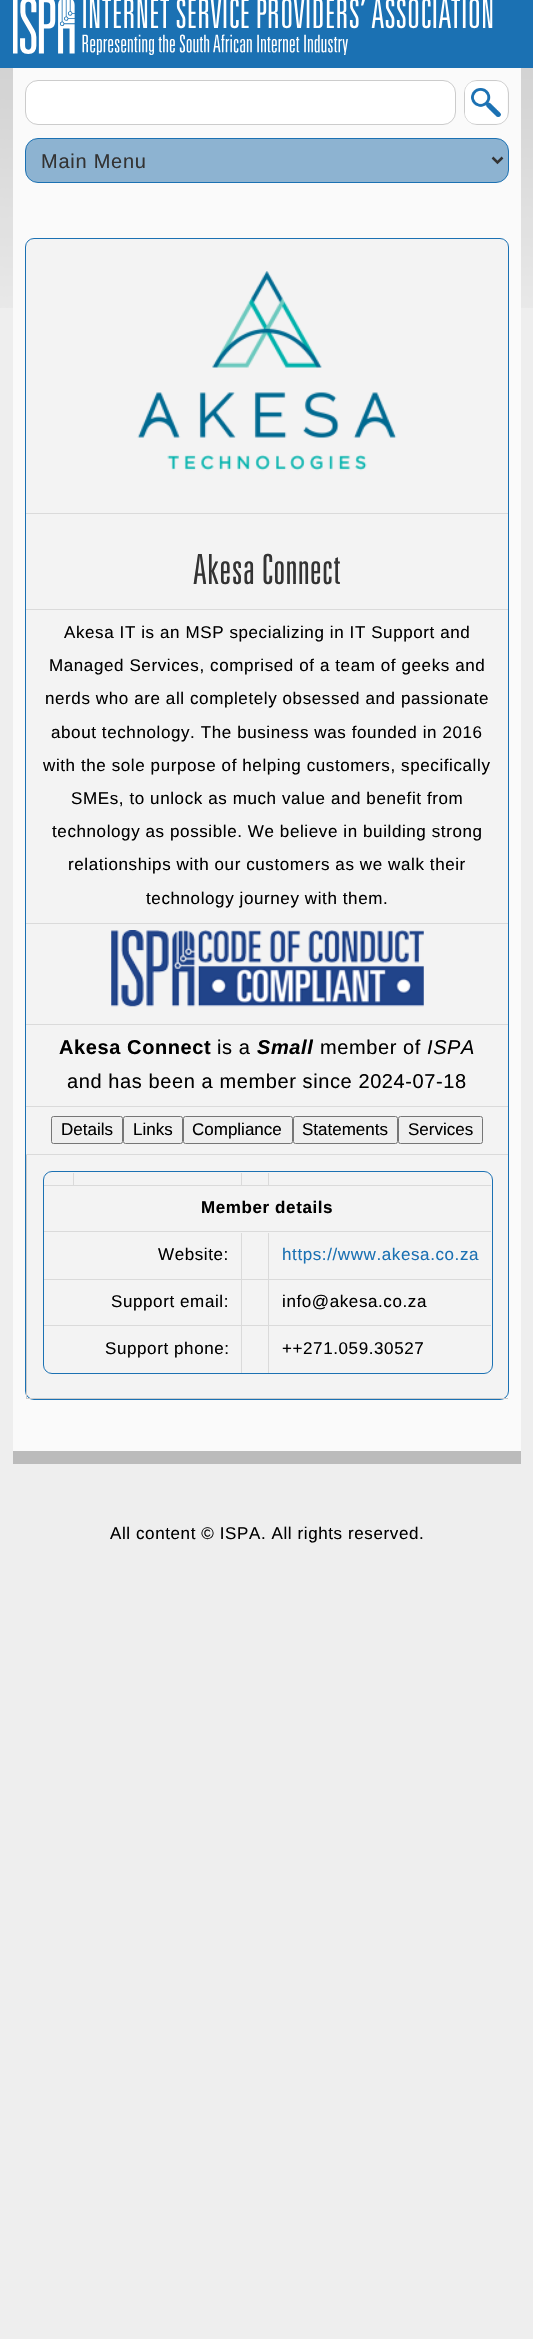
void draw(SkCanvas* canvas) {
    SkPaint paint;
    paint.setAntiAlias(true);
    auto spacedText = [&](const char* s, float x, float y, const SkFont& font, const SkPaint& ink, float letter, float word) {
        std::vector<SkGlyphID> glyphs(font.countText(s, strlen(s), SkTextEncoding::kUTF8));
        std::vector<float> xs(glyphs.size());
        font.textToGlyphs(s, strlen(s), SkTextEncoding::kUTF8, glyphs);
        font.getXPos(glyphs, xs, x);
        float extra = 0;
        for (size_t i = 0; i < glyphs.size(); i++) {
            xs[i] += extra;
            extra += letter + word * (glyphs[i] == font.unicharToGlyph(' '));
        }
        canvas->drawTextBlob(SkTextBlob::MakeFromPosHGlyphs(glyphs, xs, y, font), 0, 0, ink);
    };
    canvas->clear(0xFFEEEEEE);
    canvas->drawImageRect(SkImages::DeferredFromEncodedData(SkData::MakeFromFileName("img1.png")), SkRect::MakeXYWH(0, 68, 533, 240), SkSamplingOptions());
    paint.setColor(0xFF1B71B3);
    canvas->drawRect(SkRect::MakeXYWH(0, 0, 533, 68), paint);
    canvas->drawImageRect(SkImages::DeferredFromEncodedData(SkData::MakeFromFileName("img2.png")), SkRect::MakeXYWH(13, 0, 480, 55), SkSamplingOptions());
    paint.setColor(0xFFFAFAFA);
    canvas->drawRect(SkRect::MakeXYWH(13, 68, 508, 1383), paint);
    paint.setColor(0xFFBBBBBB);
    canvas->drawRect(SkRect::MakeXYWH(13, 1451, 508, 13), paint);
    paint.setColor(0xFFFFFFFF);
    canvas->drawRoundRect(SkRect::MakeXYWH(25.5f, 80.5f, 430, 44), 12.5f, 12.5f, paint);
    paint.setStyle(SkPaint::kStroke_Style);
    paint.setStrokeWidth(1);
    paint.setColor(0xFFCCCCCC);
    canvas->drawRoundRect(SkRect::MakeXYWH(25.5f, 80.5f, 430, 44), 12.5f, 12.5f, paint);
    canvas->drawRoundRect(SkRect::MakeXYWH(464.5f, 80.5f, 44, 44), 12.5f, 12.5f, paint);
    canvas->drawImageRect(SkImages::DeferredFromEncodedData(SkData::MakeFromFileName("img3.png")), SkRect::MakeXYWH(465, 81, 42, 43), SkSamplingOptions());
    paint.setStyle(SkPaint::kFill_Style);
    paint.setColor(0xFF8DB3D1);
    canvas->drawRoundRect(SkRect::MakeXYWH(25.5f, 138.5f, 483, 44), 12.5f, 12.5f, paint);
    paint.setStyle(SkPaint::kStroke_Style);
    paint.setColor(0xFF1B71B3);
    canvas->drawRoundRect(SkRect::MakeXYWH(25.5f, 138.5f, 483, 44), 12.5f, 12.5f, paint);
    paint.setStrokeWidth(2.5f);
    paint.setColor(0xFF333333);
    canvas->drawPath(SkPathBuilder().moveTo(492.5f, 157.5f).lineTo(497.5f, 162.5f).lineTo(502.5f, 157.5f).detach(), paint);
    SkFont font1(fontMgr->matchFamilyStyle("Liberation Sans", SkFontStyle::Normal()), 20);
    font1.setSubpixel(true);
    paint.setStyle(SkPaint::kFill_Style);
    spacedText("Main Menu", 41, 168, font1, paint, 0.75f, 0);
    paint.setColor(0xFFF3F3F3);
    canvas->drawRoundRect(SkRect::MakeXYWH(25.5f, 238.5f, 483, 1161), 8.5f, 8.5f, paint);
    paint.setStyle(SkPaint::kStroke_Style);
    paint.setStrokeWidth(1);
    paint.setColor(0xFF1B71B3);
    canvas->drawRoundRect(SkRect::MakeXYWH(25.5f, 238.5f, 483, 1161), 8.5f, 8.5f, paint);
    paint.setStyle(SkPaint::kFill_Style);
    paint.setColor(0xFFDADADA);
    canvas->drawRect(SkRect::MakeXYWH(26, 513, 482, 1), paint);
    canvas->drawImageRect(SkImages::DeferredFromEncodedData(SkData::MakeFromFileName("img4.png")), SkRect::MakeXYWH(137, 271, 260, 200), SkSamplingOptions());
    canvas->drawRect(SkRect::MakeXYWH(26, 609, 482, 1), paint);
    SkFont font2(fontMgr->matchFamilyStyle("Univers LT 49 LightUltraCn", SkFontStyle(300, SkFontStyle::kNormal_Width, SkFontStyle::kUpright_Slant)), 41.5f);
    font2.setSubpixel(true);
    paint.setColor(0xFF333333);
    spacedText("Akesa Connect", 193, 584, font2, paint, 0.6f, 0);
    paint.setColor(0xFFDADADA);
    canvas->drawRect(SkRect::MakeXYWH(26, 923, 482, 1), paint);
    SkFont font3(fontMgr->matchFamilyStyle("Liberation Sans", SkFontStyle::Normal()), 17);
    font3.setSubpixel(true);
    paint.setColor(0xFF000000);
    spacedText("Akesa IT is an MSP specializing in IT Support and", 64, 638, font3, paint, 0.6f, 0);
    spacedText("Managed Services, comprised of a team of geeks and", 49, 671, font3, paint, 0.6f, 0);
    spacedText("nerds who are all completely obsessed and passionate", 45, 704, font3, paint, 0.6f, 0);
    spacedText("about technology. The business was founded in 2016", 51, 738, font3, paint, 0.6f, 0);
    spacedText("with the sole purpose of helping customers, specifically", 43, 771, font3, paint, 0.6f, 0);
    spacedText("SMEs, to unlock as much value and benefit from", 71, 804, font3, paint, 0.6f, 0);
    spacedText("technology as possible. We believe in building strong", 52, 837, font3, paint, 0.6f, 0);
    spacedText("relationships with our customers as we walk their", 68, 870, font3, paint, 0.6f, 0);
    spacedText("technology journey with them.", 146, 904, font3, paint, 0.6f, 0);
    paint.setColor(0xFFDADADA);
    canvas->drawRect(SkRect::MakeXYWH(26, 1024, 482, 1), paint);
    canvas->drawImageRect(SkImages::DeferredFromEncodedData(SkData::MakeFromFileName("img5.png")), SkRect::MakeXYWH(111, 930, 313, 77), SkSamplingOptions());
    canvas->drawRect(SkRect::MakeXYWH(26, 1106, 482, 1), paint);
    SkFont font4(fontMgr->matchFamilyStyle("Liberation Sans", SkFontStyle::Bold()), 20);
    font4.setSubpixel(true);
    paint.setColor(0xFF000000);
    spacedText("Akesa Connect", 59, 1054, font4, paint, 0.6f, 0);
    spacedText("is a", 217, 1054, font1, paint, 0.6f, 0);
    SkFont font5(fontMgr->matchFamilyStyle("Liberation Sans", SkFontStyle::BoldItalic()), 20);
    font5.setSubpixel(true);
    spacedText("Small", 257, 1054, font5, paint, 0.6f, 0);
    spacedText("member of", 320, 1054, font1, paint, 0.6f, 0);
    SkFont font6(fontMgr->matchFamilyStyle("Liberation Sans", SkFontStyle::Italic()), 20);
    font6.setSubpixel(true);
    spacedText("ISPA", 427, 1054, font6, paint, 0.6f, 0);
    spacedText("and has been a member since 2024-07-18", 67, 1088, font1, paint, 0.6f, 0);
    paint.setColor(0xFFDADADA);
    canvas->drawRect(SkRect::MakeXYWH(26, 1154, 482, 1), paint);
    paint.setColor(0xFFEFEFEF);
    canvas->drawRoundRect(SkRect::MakeXYWH(51.5f, 1116.5f, 71, 27), 2, 2, paint);
    paint.setStyle(SkPaint::kStroke_Style);
    paint.setColor(0xFF767676);
    canvas->drawRoundRect(SkRect::MakeXYWH(51.5f, 1116.5f, 71, 27), 2, 2, paint);
    paint.setStyle(SkPaint::kFill_Style);
    paint.setColor(0xFF000000);
    canvas->drawString("Details", 61, 1135, font3, paint);
    paint.setColor(0xFFEFEFEF);
    canvas->drawRoundRect(SkRect::MakeXYWH(123.5f, 1116.5f, 59, 27), 2, 2, paint);
    paint.setStyle(SkPaint::kStroke_Style);
    paint.setColor(0xFF767676);
    canvas->drawRoundRect(SkRect::MakeXYWH(123.5f, 1116.5f, 59, 27), 2, 2, paint);
    paint.setStyle(SkPaint::kFill_Style);
    paint.setColor(0xFF000000);
    canvas->drawString("Links", 133, 1135, font3, paint);
    paint.setColor(0xFFEFEFEF);
    canvas->drawRoundRect(SkRect::MakeXYWH(183.5f, 1116.5f, 109, 27), 2, 2, paint);
    paint.setStyle(SkPaint::kStroke_Style);
    paint.setColor(0xFF767676);
    canvas->drawRoundRect(SkRect::MakeXYWH(183.5f, 1116.5f, 109, 27), 2, 2, paint);
    paint.setStyle(SkPaint::kFill_Style);
    paint.setColor(0xFF000000);
    canvas->drawString("Compliance", 192, 1135, font3, paint);
    paint.setColor(0xFFEFEFEF);
    canvas->drawRoundRect(SkRect::MakeXYWH(293.5f, 1116.5f, 104, 27), 2, 2, paint);
    paint.setStyle(SkPaint::kStroke_Style);
    paint.setColor(0xFF767676);
    canvas->drawRoundRect(SkRect::MakeXYWH(293.5f, 1116.5f, 104, 27), 2, 2, paint);
    paint.setStyle(SkPaint::kFill_Style);
    paint.setColor(0xFF000000);
    canvas->drawString("Statements", 302, 1135, font3, paint);
    paint.setColor(0xFFEFEFEF);
    canvas->drawRoundRect(SkRect::MakeXYWH(398.5f, 1116.5f, 84, 27), 2, 2, paint);
    paint.setStyle(SkPaint::kStroke_Style);
    paint.setColor(0xFF767676);
    canvas->drawRoundRect(SkRect::MakeXYWH(398.5f, 1116.5f, 84, 27), 2, 2, paint);
    paint.setStyle(SkPaint::kFill_Style);
    paint.setColor(0xFF000000);
    canvas->drawString("Services", 408, 1135, font3, paint);
    paint.setColor(0xFFCCCCCC);
    canvas->drawRect(SkRect::MakeXYWH(26, 1398, 482, 1), paint);
    canvas->drawRect(SkRect::MakeXYWH(26, 1155, 1, 244), paint);
    paint.setStyle(SkPaint::kStroke_Style);
    paint.setColor(0xFF1B71B3);
    canvas->drawRoundRect(SkRect::MakeXYWH(43.5f, 1171.5f, 449, 202), 8.5f, 8.5f, paint);
    paint.setStyle(SkPaint::kFill_Style);
    paint.setColor(0xFFDADADA);
    canvas->drawRect(SkRect::MakeXYWH(73, 1173, 1, 13), paint);
    canvas->drawRect(SkRect::MakeXYWH(44, 1185, 30, 1), paint);
    canvas->drawRect(SkRect::MakeXYWH(241, 1173, 1, 13), paint);
    canvas->drawRect(SkRect::MakeXYWH(74, 1185, 169, 1), paint);
    canvas->drawRect(SkRect::MakeXYWH(268, 1173, 1, 13), paint);
    canvas->drawRect(SkRect::MakeXYWH(243, 1185, 248, 1), paint);
    canvas->drawRect(SkRect::MakeXYWH(44, 1231, 447, 1), paint);
    SkFont font7(fontMgr->matchFamilyStyle("Liberation Sans", SkFontStyle::Bold()), 17);
    font7.setSubpixel(true);
    paint.setColor(0xFF000000);
    spacedText("Member details", 201, 1213, font7, paint, 0.6f, 0);
    paint.setColor(0xFFDADADA);
    canvas->drawRect(SkRect::MakeXYWH(241, 1233, 1, 140), paint);
    canvas->drawRect(SkRect::MakeXYWH(44, 1279, 199, 1), paint);
    paint.setColor(0xFF000000);
    spacedText("Website:", 158, 1260, font3, paint, 0.6f, 0);
    paint.setColor(0xFFDADADA);
    canvas->drawRect(SkRect::MakeXYWH(268, 1233, 1, 140), paint);
    canvas->drawRect(SkRect::MakeXYWH(243, 1279, 248, 1), paint);
    paint.setColor(0xFF1B71B3);
    spacedText("https://www.akesa.co.za", 282, 1260, font3, paint, 0.6f, 0);
    paint.setColor(0xFFDADADA);
    canvas->drawRect(SkRect::MakeXYWH(44, 1325, 447, 1), paint);
    paint.setColor(0xFF000000);
    spacedText("Support email:", 111, 1307, font3, paint, 0.6f, 0);
    spacedText("info@akesa.co.za", 282, 1307, font3, paint, 0.6f, 0);
    spacedText("Support phone:", 105, 1354, font3, paint, 0.6f, 0);
    spacedText("++271.059.30527", 282, 1354, font3, paint, 0.6f, 0);
    spacedText("All content © ISPA. All rights reserved.", 110, 1539, font3, paint, 0.6f, 0);
}
